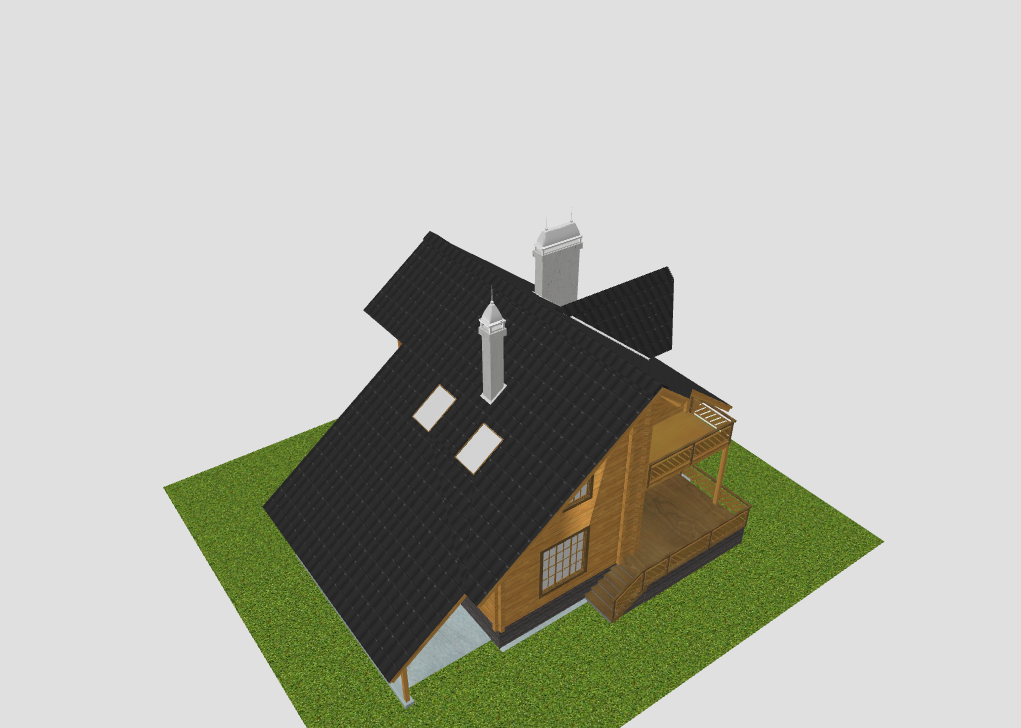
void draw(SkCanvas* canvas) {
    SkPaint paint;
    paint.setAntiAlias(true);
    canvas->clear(0xFFE0E0E0);
    canvas->drawImageRect(SkImages::DeferredFromEncodedData(SkData::MakeFromFileName("img1.png")), SkRect::MakeXYWH(163, 207, 722, 521), SkSamplingOptions());
}
